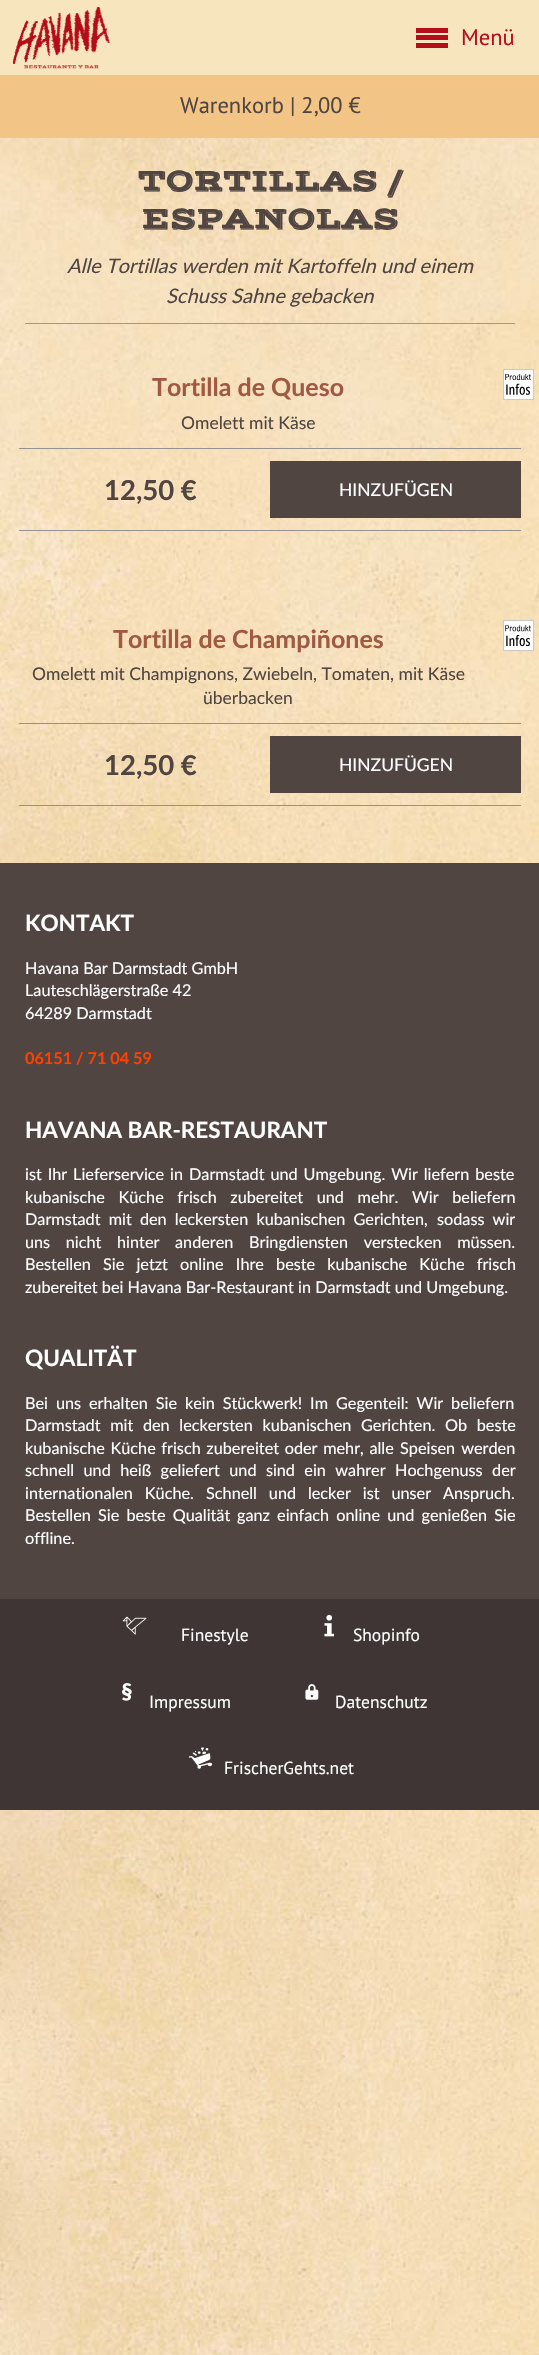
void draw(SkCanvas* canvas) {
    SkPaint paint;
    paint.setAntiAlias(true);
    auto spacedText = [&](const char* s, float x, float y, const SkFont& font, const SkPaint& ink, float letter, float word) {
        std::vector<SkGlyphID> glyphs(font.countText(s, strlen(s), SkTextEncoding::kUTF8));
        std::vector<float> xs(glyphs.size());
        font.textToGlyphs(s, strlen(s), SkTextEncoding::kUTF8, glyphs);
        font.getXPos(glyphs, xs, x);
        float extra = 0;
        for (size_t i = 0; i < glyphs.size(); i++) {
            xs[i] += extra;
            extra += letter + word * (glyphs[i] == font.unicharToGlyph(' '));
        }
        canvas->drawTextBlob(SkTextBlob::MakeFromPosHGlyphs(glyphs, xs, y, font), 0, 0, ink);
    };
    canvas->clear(0xFFFFFFFF);
    canvas->drawImageRect(SkImages::DeferredFromEncodedData(SkData::MakeFromFileName("img1.png")), SkRect::MakeXYWH(0, 138, 539, 2217), SkSamplingOptions());
    paint.setColor(0xFFF7E5BD);
    canvas->drawRect(SkRect::MakeXYWH(0, 0, 539, 75), paint);
    canvas->drawImageRect(SkImages::DeferredFromEncodedData(SkData::MakeFromFileName("img2.png")), SkRect::MakeXYWH(13, 7, 97, 62), SkSamplingOptions());
    paint.setColor(0xFFB40E1A);
    canvas->drawRect(SkRect::MakeXYWH(416, 28, 32, 5), paint);
    canvas->drawRect(SkRect::MakeXYWH(416, 35, 32, 5), paint);
    SkFont font1(fontMgr->matchFamilyStyle("PT Sans", SkFontStyle::Normal()), 22.5f);
    font1.setSubpixel(true);
    canvas->drawString("Menü", 461, 45, font1, paint);
    canvas->drawRect(SkRect::MakeXYWH(416, 43, 32, 5), paint);
    paint.setColor(0xFFF2C486);
    canvas->drawRect(SkRect::MakeXYWH(0, 75, 539, 63), paint);
    paint.setColor(0xFF504541);
    canvas->drawString("Warenkorb", 180, 113, font1, paint);
    canvas->drawString("| 2,00 €", 290, 113, font1, paint);
    SkFont font2(fontMgr->matchFamilyStyle("Vast Shadow", SkFontStyle::Bold()), 30);
    font2.setSubpixel(true);
    canvas->drawString("TORTILLAS /", 137, 190, font2, paint);
    canvas->drawString("ESPANOLAS", 141, 228, font2, paint);
    paint.setColor(0xFF999999);
    canvas->drawRect(SkRect::MakeXYWH(25, 323, 490, 1), paint);
    SkFont font3(fontMgr->matchFamilyStyle("Lato", SkFontStyle::Italic()), 20);
    font3.setSubpixel(true);
    paint.setColor(0xFF504541);
    canvas->drawString("Alle Tortillas werden mit Kartoffeln und einem", 67, 273, font3, paint);
    canvas->drawString("Schuss Sahne gebacken", 166, 303, font3, paint);
    SkFont font4(fontMgr->matchFamilyStyle("Lato", SkFontStyle::Bold()), 25);
    font4.setSubpixel(true);
    paint.setColor(0xFFA05943);
    canvas->drawString("Tortilla de Queso", 152, 396, font4, paint);
    SkFont font5(fontMgr->matchFamilyStyle("Lato", SkFontStyle::Normal()), 17.5f);
    font5.setSubpixel(true);
    paint.setColor(0xFF504541);
    canvas->drawString("Omelett mit Käse", 181, 429, font5, paint);
    paint.setColor(0xFFFFFFFF);
    canvas->drawRect(SkRect::MakeXYWH(503.5f, 369.5f, 30, 30), paint);
    paint.setStyle(SkPaint::kStroke_Style);
    paint.setStrokeWidth(1);
    paint.setColor(0xFFCAC9C7);
    canvas->drawRect(SkRect::MakeXYWH(503.5f, 369.5f, 30, 30), paint);
    canvas->drawImageRect(SkImages::DeferredFromEncodedData(SkData::MakeFromFileName("img3.png")), SkRect::MakeXYWH(505, 374, 26, 21), SkSamplingOptions());
    paint.setStyle(SkPaint::kFill_Style);
    paint.setColor(0xFF959391);
    canvas->drawRect(SkRect::MakeXYWH(19, 448, 502, 1), paint);
    canvas->drawRect(SkRect::MakeXYWH(19, 530, 502, 1), paint);
    SkFont font6(fontMgr->matchFamilyStyle("Lato", SkFontStyle::Bold()), 27.5f);
    font6.setSubpixel(true);
    paint.setColor(0xFF504541);
    canvas->drawString("12,50 €", 104, 500, font6, paint);
    canvas->drawRect(SkRect::MakeXYWH(270, 461, 251, 57), paint);
    paint.setColor(0xFFFFFFFF);
    canvas->drawString("HINZUFÜGEN", 339, 496, font5, paint);
    paint.setColor(0xFFA05943);
    canvas->drawString("Tortilla de Champiñones", 113, 648, font4, paint);
    paint.setColor(0xFF504541);
    canvas->drawString("Omelett mit Champignons, Zwiebeln, Tomaten, mit Käse", 32, 680, font5, paint);
    canvas->drawString("überbacken", 203, 704, font5, paint);
    paint.setColor(0xFFFFFFFF);
    canvas->drawRect(SkRect::MakeXYWH(503.5f, 620.5f, 30, 30), paint);
    paint.setStyle(SkPaint::kStroke_Style);
    paint.setColor(0xFFCAC9C7);
    canvas->drawRect(SkRect::MakeXYWH(503.5f, 620.5f, 30, 30), paint);
    canvas->drawImageRect(SkImages::DeferredFromEncodedData(SkData::MakeFromFileName("img4.png")), SkRect::MakeXYWH(505, 625, 26, 21), SkSamplingOptions());
    paint.setStyle(SkPaint::kFill_Style);
    paint.setColor(0xFF959391);
    canvas->drawRect(SkRect::MakeXYWH(19, 723, 502, 1), paint);
    canvas->drawRect(SkRect::MakeXYWH(19, 805, 502, 1), paint);
    paint.setColor(0xFF504541);
    canvas->drawString("12,50 €", 104, 775, font6, paint);
    canvas->drawRect(SkRect::MakeXYWH(270, 736, 251, 57), paint);
    paint.setColor(0xFFFFFFFF);
    canvas->drawString("HINZUFÜGEN", 339, 771, font5, paint);
    paint.setColor(0xFF504541);
    canvas->drawRect(SkRect::MakeXYWH(0, 863, 539, 736), paint);
    SkFont font7(fontMgr->matchFamilyStyle("Lato", SkFontStyle::Bold()), 22.5f);
    font7.setSubpixel(true);
    paint.setColor(0xFFFFFFFF);
    canvas->drawString("KONTAKT", 25, 931, font7, paint);
    SkFont font8(fontMgr->matchFamilyStyle("Lato", SkFontStyle::Normal()), 16.25f);
    font8.setSubpixel(true);
    canvas->drawString("Havana Bar Darmstadt GmbH", 25, 974, font8, paint);
    canvas->drawString("Lauteschlägerstraße 42", 25, 996, font8, paint);
    canvas->drawString("64289 Darmstadt", 25, 1019, font8, paint);
    SkFont font9(fontMgr->matchFamilyStyle("Lato", SkFontStyle::Bold()), 16.25f);
    font9.setSubpixel(true);
    paint.setColor(0xFFFF4001);
    canvas->drawString("06151 / 71 04 59", 25, 1064, font9, paint);
    paint.setColor(0xFFFFFFFF);
    canvas->drawString("HAVANA BAR-RESTAURANT", 25, 1138, font7, paint);
    spacedText("ist Ihr Lieferservice in Darmstadt und Umgebung. Wir liefern beste", 25, 1180, font8, paint, 0, 1.75f);
    spacedText("kubanische Küche frisch zubereitet und mehr. Wir beliefern", 25, 1203, font8, paint, 0, 9.5f);
    spacedText("Darmstadt mit den leckersten kubanischen Gerichten,", 25, 1225, font8, paint, 0, 4);
    spacedText("sodass wir", 437, 1225, font8, paint, 0, 4);
    spacedText("uns nicht hinter anderen Bringdiensten verstecken müssen.", 25, 1248, font8, paint, 0, 11.5f);
    spacedText("Bestellen Sie jetzt online Ihre beste kubanische Küche frisch", 25, 1270, font8, paint, 0, 8);
    canvas->drawString("zubereitet bei Havana Bar-Restaurant in Darmstadt und Umgebung.", 25, 1293, font8, paint);
    canvas->drawString("QUALITÄT", 25, 1366, font7, paint);
    spacedText("Bei uns erhalten Sie kein Stückwerk! Im Gegenteil: Wir beliefern", 25, 1409, font8, paint, 0, 3.75f);
    spacedText("Darmstadt mit den leckersten kubanischen Gerichten. Ob beste", 25, 1431, font8, paint, 0, 5.5f);
    spacedText("kubanische Küche frisch zubereitet oder mehr, alle", 25, 1454, font8, paint, 0, 1.5f);
    spacedText("Speisen werden", 400, 1454, font8, paint, 0, 2);
    spacedText("schnell und heiß geliefert und sind ein wahrer Hochgenuss der", 25, 1476, font8, paint, 0, 5.25f);
    spacedText("internationalen Küche.", 25, 1499, font8, paint, 0, 7.75f);
    spacedText("Schnell und lecker ist unser Anspruch.", 206, 1499, font8, paint, 0, 7.75f);
    spacedText("Bestellen Sie beste Qualität", 25, 1521, font8, paint, 0, 3);
    spacedText("ganz einfach online und genießen Sie", 237, 1521, font8, paint, 0, 3);
    canvas->drawString("offline.", 25, 1544, font8, paint);
    paint.setColor(0xFF3F3534);
    canvas->drawRect(SkRect::MakeXYWH(0, 1599, 539, 211), paint);
    canvas->drawImageRect(SkImages::DeferredFromEncodedData(SkData::MakeFromFileName("img5.png")), SkRect::MakeXYWH(122, 1616, 25, 19), SkSamplingOptions());
    SkFont font10(fontMgr->matchFamilyStyle("PT Sans", SkFontStyle::Normal()), 17.5f);
    font10.setSubpixel(true);
    paint.setColor(0xFFFFFFFF);
    canvas->drawString("Finestyle", 181, 1641, font10, paint);
    canvas->drawImageRect(SkImages::DeferredFromEncodedData(SkData::MakeFromFileName("img6.png")), SkRect::MakeXYWH(324, 1614, 10, 23), SkSamplingOptions());
    canvas->drawString("Shopinfo", 353, 1641, font10, paint);
    canvas->drawImageRect(SkImages::DeferredFromEncodedData(SkData::MakeFromFileName("img7.png")), SkRect::MakeXYWH(122, 1683, 10, 18), SkSamplingOptions());
    canvas->drawString("Impressum", 149, 1708, font10, paint);
    canvas->drawImageRect(SkImages::DeferredFromEncodedData(SkData::MakeFromFileName("img8.png")), SkRect::MakeXYWH(305, 1684, 14, 16), SkSamplingOptions());
    canvas->drawString("Datenschutz", 335, 1708, font10, paint);
    canvas->drawImageRect(SkImages::DeferredFromEncodedData(SkData::MakeFromFileName("img9.png")), SkRect::MakeXYWH(188, 1747, 25, 22), SkSamplingOptions());
    canvas->drawString("FrischerGehts.net", 224, 1774, font10, paint);
}
